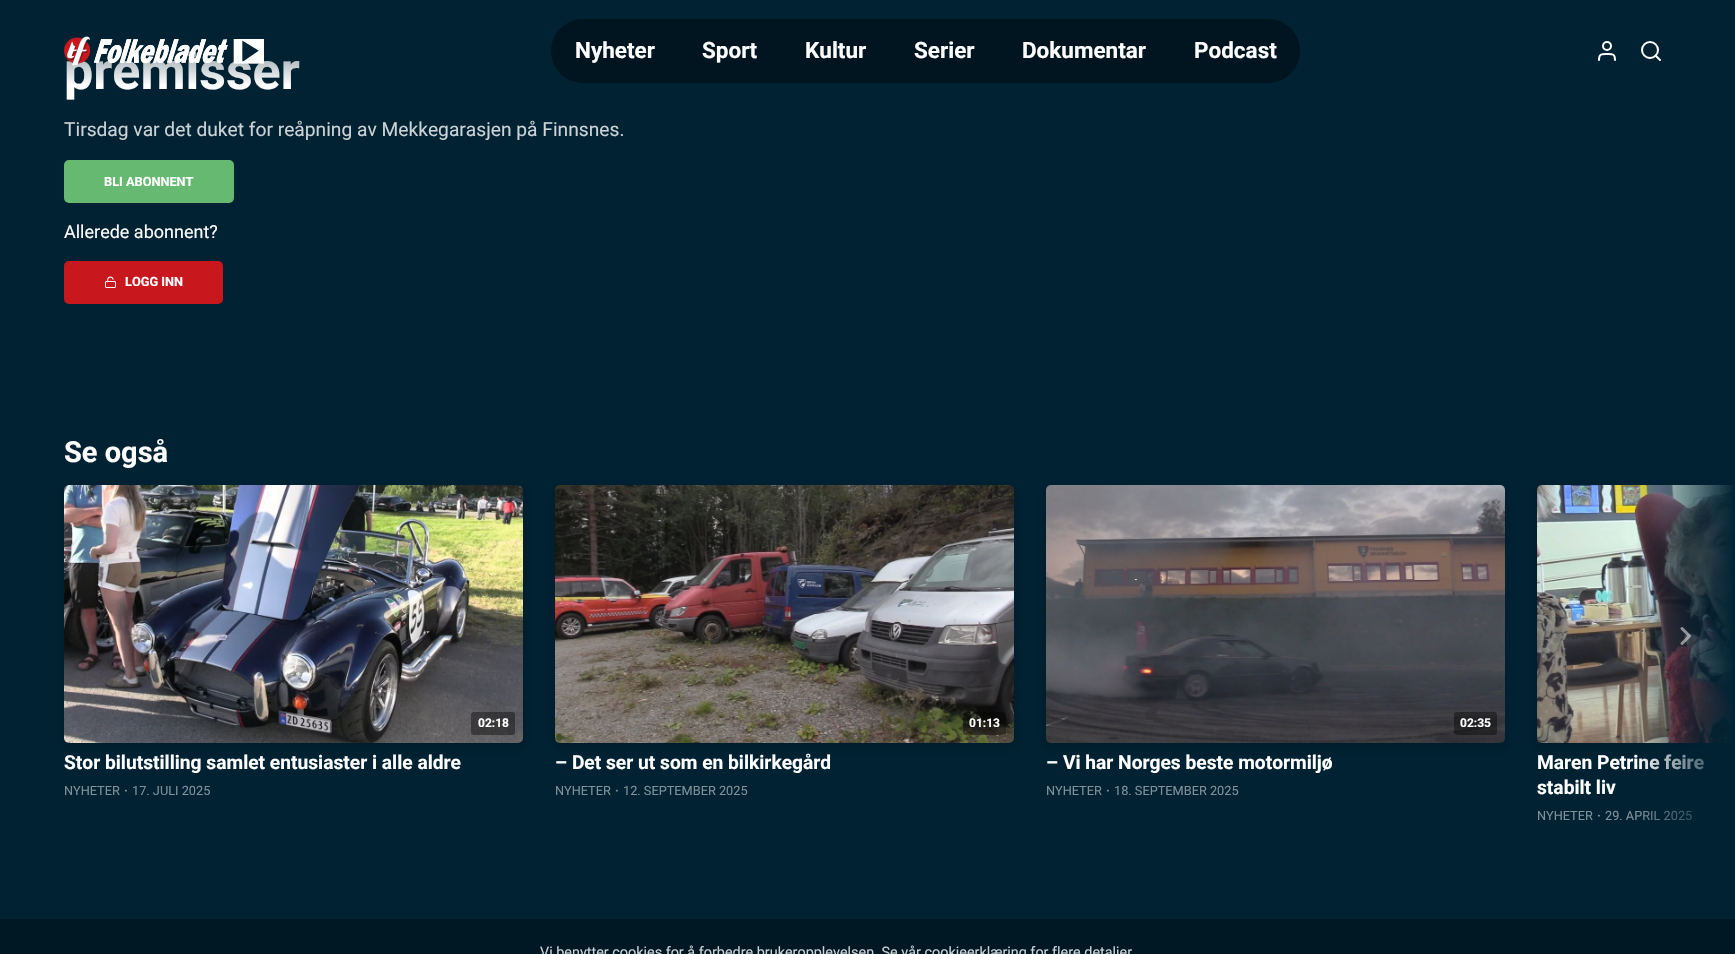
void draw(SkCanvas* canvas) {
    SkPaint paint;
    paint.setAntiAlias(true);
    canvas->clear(0xFF002233);
    SkFont font1(fontMgr->matchFamilyStyle("Roboto", SkFontStyle::Bold()), 52);
    font1.setSubpixel(true);
    paint.setColor(0xFFFFFFFF);
    canvas->drawString("premisser", 64, 89, font1, paint);
    {
        const SkColor colors[] = {0xFF002233, 0x00002233};
        const float stops[] = {0, 1};
        const SkPoint ends[] = {{868, 0}, {868, 86}};
        paint.setShader(SkGradientShader::MakeLinear(ends, colors, stops, 2, SkTileMode::kClamp));
        paint.setAlpha(255);
    }
    canvas->drawRect(SkRect::MakeXYWH(66, 50, 234, 34), paint);
    canvas->drawImageRect(SkImages::DeferredFromEncodedData(SkData::MakeFromFileName("img1.png")), SkRect::MakeXYWH(64, 36, 200, 30), SkSamplingOptions());
    paint.setShader(nullptr);
    paint.setColor(0x66000000);
    canvas->drawRoundRect(SkRect::MakeXYWH(551, 19, 749, 64), 32, 32, paint);
    SkFont font2(fontMgr->matchFamilyStyle("Roboto", SkFontStyle::Bold()), 22.5f);
    font2.setSubpixel(true);
    paint.setColor(0xFFFFFFFF);
    canvas->drawString("Nyheter", 575, 58, font2, paint);
    canvas->drawString("Sport", 702, 58, font2, paint);
    canvas->drawString("Kultur", 805, 58, font2, paint);
    canvas->drawString("Serier", 914, 58, font2, paint);
    canvas->drawString("Dokumentar", 1022, 58, font2, paint);
    canvas->drawString("Podcast", 1194, 58, font2, paint);
    paint.setStyle(SkPaint::kStroke_Style);
    paint.setStrokeWidth(2);
    paint.setStrokeCap(SkPaint::kRound_Cap);
    paint.setStrokeJoin(SkPaint::kRound_Join);
    canvas->drawPath(SkPathBuilder().moveTo(1615, 60).cubicTo(1615, 53.5f, 1612.5f, 54, 1607, 54).cubicTo(1601.5f, 54, 1599, 53.5f, 1599, 60).detach(), paint);
    paint.setStrokeCap(SkPaint::kButt_Cap);
    paint.setStrokeJoin(SkPaint::kMiter_Join);
    canvas->drawCircle(1607, 46, 4, paint);
    canvas->drawCircle(1650, 50, 8, paint);
    paint.setStrokeCap(SkPaint::kRound_Cap);
    paint.setStrokeJoin(SkPaint::kRound_Join);
    canvas->drawPath(SkPathBuilder().moveTo(1660, 60).lineTo(1655.5f, 55.5f).detach(), paint);
    SkFont font3(fontMgr->matchFamilyStyle("Roboto", SkFontStyle::Normal()), 19.2f);
    font3.setSubpixel(true);
    paint.setStyle(SkPaint::kFill_Style);
    paint.setColor(0xFFCCD3D6);
    canvas->drawString("Tirsdag var det duket for reåpning av Mekkegarasjen på Finnsnes.", 64, 136, font3, paint);
    paint.setColor(0xFF65B970);
    canvas->drawRoundRect(SkRect::MakeXYWH(64, 160, 170, 43), 5, 5, paint);
    SkFont font4(fontMgr->matchFamilyStyle("Roboto", SkFontStyle::Bold()), 12.75f);
    font4.setSubpixel(true);
    paint.setColor(0xFFFFFFFF);
    canvas->drawString("BLI ABONNENT", 104, 186, font4, paint);
    SkFont font5(fontMgr->matchFamilyStyle("Roboto", SkFontStyle::Normal()), 18);
    font5.setSubpixel(true);
    canvas->drawString("Allerede abonnent?", 64, 238, font5, paint);
    paint.setColor(0xFFC9171E);
    canvas->drawRoundRect(SkRect::MakeXYWH(64, 261, 159, 43), 5, 5, paint);
    canvas->drawImageRect(SkImages::DeferredFromEncodedData(SkData::MakeFromFileName("img2.png")), SkRect::MakeXYWH(105, 276, 11, 12), SkSamplingOptions());
    paint.setColor(0xFFFFFFFF);
    canvas->drawString("LOGG INN", 125, 286, font4, paint);
    SkFont font6(fontMgr->matchFamilyStyle("Roboto", SkFontStyle::Bold()), 29);
    font6.setSubpixel(true);
    canvas->drawString("Se også", 64, 462, font6, paint);
    paint.setColor(0x33000000);
    paint.setMaskFilter(SkMaskFilter::MakeBlur(kNormal_SkBlurStyle, 6));
    canvas->drawRoundRect(SkRect::MakeXYWH(1537, 489, 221, 258), 5, 5, paint);
    paint.setMaskFilter(nullptr);
    canvas->drawImageRect(SkImages::DeferredFromEncodedData(SkData::MakeFromFileName("img7.png")), SkRect::MakeXYWH(1537, 485, 197, 258), SkSamplingOptions());
    SkFont font7(fontMgr->matchFamilyStyle("Roboto", SkFontStyle::Bold()), 19.2f);
    font7.setSubpixel(true);
    paint.setColor(0xFFFFFFFF);
    canvas->drawString("Maren Petrine feire", 1537, 769, font7, paint);
    SkFont font8(fontMgr->matchFamilyStyle("Roboto", SkFontStyle::Normal()), 12.75f);
    font8.setSubpixel(true);
    paint.setColor(0xFF809199);
    canvas->drawString("29. APRIL 2025", 1605, 820, font8, paint);
    {
        const SkColor colors[] = {0x00002233, 0xFF002233};
        const float stops[] = {0, 1};
        const SkPoint ends[] = {{1635, 636}, {1735, 636}};
        paint.setShader(SkGradientShader::MakeLinear(ends, colors, stops, 2, SkTileMode::kClamp));
        paint.setAlpha(255);
    }
    canvas->drawRect(SkRect::MakeXYWH(1637, 485, 98, 336), paint);
    canvas->drawImageRect(SkImages::DeferredFromEncodedData(SkData::MakeFromFileName("img3.png")), SkRect::MakeXYWH(1680, 627, 11, 18), SkSamplingOptions());
    paint.setShader(nullptr);
    paint.setColor(0x33000000);
    paint.setMaskFilter(SkMaskFilter::MakeBlur(kNormal_SkBlurStyle, 6));
    canvas->drawRoundRect(SkRect::MakeXYWH(64, 489, 459, 258), 5, 5, paint);
    paint.setMaskFilter(nullptr);
    canvas->drawImageRect(SkImages::DeferredFromEncodedData(SkData::MakeFromFileName("img4.png")), SkRect::MakeXYWH(64, 485, 459, 258), SkSamplingOptions());
    paint.setColor(0x66000000);
    canvas->drawRoundRect(SkRect::MakeXYWH(471, 712, 44, 23), 3, 3, paint);
    SkFont font9(fontMgr->matchFamilyStyle("Roboto", SkFontStyle::Bold()), 12);
    font9.setSubpixel(true);
    paint.setColor(0xFFFFFFFF);
    canvas->drawString("02:18", 478, 727, font9, paint);
    canvas->drawString("Stor bilutstilling samlet entusiaster i alle aldre", 64, 769, font7, paint);
    paint.setColor(0xFF809199);
    canvas->drawString("NYHETER", 64, 795, font8, paint);
    canvas->drawString("·", 124, 795, font4, paint);
    canvas->drawString("17. JULI 2025", 132, 795, font8, paint);
    paint.setColor(0x33000000);
    paint.setMaskFilter(SkMaskFilter::MakeBlur(kNormal_SkBlurStyle, 6));
    canvas->drawRoundRect(SkRect::MakeXYWH(555, 489, 459, 258), 5, 5, paint);
    paint.setMaskFilter(nullptr);
    canvas->drawImageRect(SkImages::DeferredFromEncodedData(SkData::MakeFromFileName("img5.png")), SkRect::MakeXYWH(555, 485, 459, 258), SkSamplingOptions());
    paint.setColor(0x66000000);
    canvas->drawRoundRect(SkRect::MakeXYWH(963, 712, 43, 23), 3, 3, paint);
    paint.setColor(0xFFFFFFFF);
    canvas->drawString("01:13", 969, 727, font9, paint);
    canvas->drawString("– Det ser ut som en bilkirkegård", 555, 769, font7, paint);
    paint.setColor(0xFF809199);
    canvas->drawString("NYHETER", 555, 795, font8, paint);
    canvas->drawString("·", 615, 795, font4, paint);
    canvas->drawString("12. SEPTEMBER 2025", 623, 795, font8, paint);
    paint.setColor(0x33000000);
    paint.setMaskFilter(SkMaskFilter::MakeBlur(kNormal_SkBlurStyle, 6));
    canvas->drawRoundRect(SkRect::MakeXYWH(1046, 489, 459, 258), 5, 5, paint);
    paint.setMaskFilter(nullptr);
    canvas->drawImageRect(SkImages::DeferredFromEncodedData(SkData::MakeFromFileName("img6.png")), SkRect::MakeXYWH(1046, 485, 459, 258), SkSamplingOptions());
    paint.setColor(0x66000000);
    canvas->drawRoundRect(SkRect::MakeXYWH(1454, 712, 43, 23), 3, 3, paint);
    paint.setColor(0xFFFFFFFF);
    canvas->drawString("02:35", 1460, 727, font9, paint);
    canvas->drawString("– Vi har Norges beste motormiljø", 1046, 769, font7, paint);
    paint.setColor(0xFF809199);
    canvas->drawString("NYHETER", 1046, 795, font8, paint);
    canvas->drawString("·", 1106, 795, font4, paint);
    canvas->drawString("18. SEPTEMBER 2025", 1114, 795, font8, paint);
    paint.setColor(0xFFFFFFFF);
    canvas->drawString("stabilt liv", 1537, 794, font7, paint);
    paint.setColor(0xFF809199);
    canvas->drawString("NYHETER", 1537, 820, font8, paint);
    canvas->drawString("·", 1597, 820, font4, paint);
    paint.setColor(0xFF001824);
    canvas->drawRect(SkRect::MakeXYWH(0, 919, 1735, 35), paint);
    SkFont font10(fontMgr->matchFamilyStyle("Roboto", SkFontStyle::Normal()), 14.4f);
    font10.setSubpixel(true);
    paint.setColor(0xFFCCD3D6);
    canvas->drawString("Vi benytter cookies for å forbedre brukeropplevelsen. Se vår cookieerklæring for flere detaljer", 540, 957, font10, paint);
}
